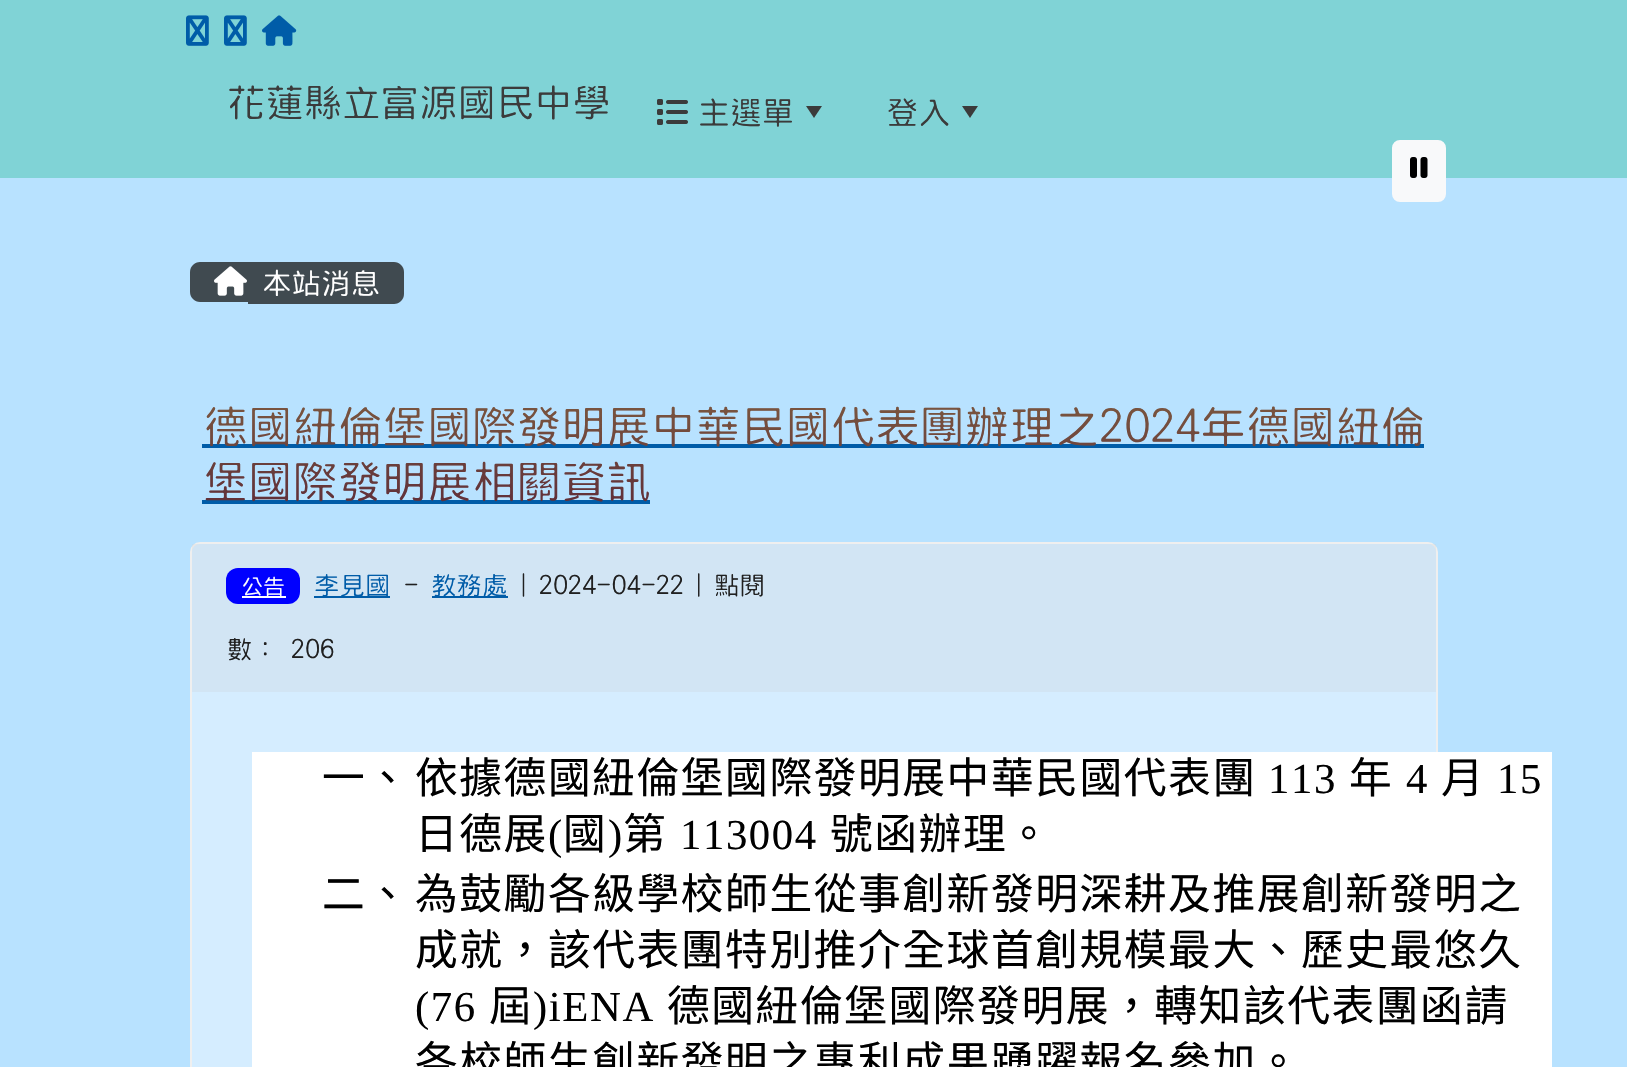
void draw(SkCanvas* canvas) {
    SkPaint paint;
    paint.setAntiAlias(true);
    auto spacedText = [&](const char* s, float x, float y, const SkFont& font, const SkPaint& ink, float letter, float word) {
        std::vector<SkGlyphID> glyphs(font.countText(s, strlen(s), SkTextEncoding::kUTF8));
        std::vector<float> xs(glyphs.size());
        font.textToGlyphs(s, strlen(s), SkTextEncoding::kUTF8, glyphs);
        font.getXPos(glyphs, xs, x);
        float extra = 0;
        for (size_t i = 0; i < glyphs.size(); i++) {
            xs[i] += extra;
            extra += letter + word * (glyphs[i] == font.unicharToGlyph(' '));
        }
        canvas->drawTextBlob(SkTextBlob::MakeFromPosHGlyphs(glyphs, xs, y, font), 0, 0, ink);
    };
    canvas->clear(0xFFB8E2FF);
    paint.setColor(0xFF80D3D6);
    canvas->drawRect(SkRect::MakeXYWH(0, 0, 1627, 178), paint);
    canvas->drawImageRect(SkImages::DeferredFromEncodedData(SkData::MakeFromFileName("img1.png")), SkRect::MakeXYWH(186, 15, 23, 31), SkSamplingOptions());
    canvas->drawImageRect(SkImages::DeferredFromEncodedData(SkData::MakeFromFileName("img1.png")), SkRect::MakeXYWH(224, 15, 23, 31), SkSamplingOptions());
    canvas->drawImageRect(SkImages::DeferredFromEncodedData(SkData::MakeFromFileName("img2.png")), SkRect::MakeXYWH(262, 15, 35, 31), SkSamplingOptions());
    SkFont font1(fontMgr->matchFamilyStyle("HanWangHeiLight", SkFontStyle(300, SkFontStyle::kNormal_Width, SkFontStyle::kUpright_Slant)), 38.4f);
    font1.setSubpixel(true);
    paint.setColor(0xFF3B3B3B);
    canvas->drawString("花蓮縣立富源國民中學", 227, 114, font1, paint);
    canvas->drawImageRect(SkImages::DeferredFromEncodedData(SkData::MakeFromFileName("img3.png")), SkRect::MakeXYWH(657, 99, 31, 26), SkSamplingOptions());
    SkFont font2(fontMgr->matchFamilyStyle("HanWangHeiLight", SkFontStyle(300, SkFontStyle::kNormal_Width, SkFontStyle::kUpright_Slant)), 32);
    font2.setSubpixel(true);
    canvas->drawString("主選單", 698, 122, font2, paint);
    canvas->drawPath(SkPathBuilder().moveTo(806, 106).lineTo(822, 106).lineTo(814, 118).close().detach(), paint);
    canvas->drawString("登入", 886, 122, font2, paint);
    canvas->drawPath(SkPathBuilder().moveTo(962, 106).lineTo(978, 106).lineTo(970, 118).close().detach(), paint);
    paint.setColor(0xFFF8F9FA);
    canvas->drawRoundRect(SkRect::MakeXYWH(1393, 141, 52, 60), 7, 7, paint);
    paint.setStyle(SkPaint::kStroke_Style);
    paint.setStrokeWidth(2);
    canvas->drawRoundRect(SkRect::MakeXYWH(1393, 141, 52, 60), 7, 7, paint);
    canvas->drawImageRect(SkImages::DeferredFromEncodedData(SkData::MakeFromFileName("img4.png")), SkRect::MakeXYWH(1410, 157, 18, 21), SkSamplingOptions());
    paint.setStyle(SkPaint::kFill_Style);
    paint.setColor(0xFF404A50);
    canvas->drawPath(SkPathBuilder().moveTo(200, 262).lineTo(248, 262).lineTo(248, 302).lineTo(200, 302).cubicTo(194.5f, 302, 190, 297.5f, 190, 292).lineTo(190, 272).cubicTo(190, 266.5f, 194.5f, 262, 200, 262).close().detach(), paint);
    canvas->drawPath(SkPathBuilder().moveTo(248, 262).lineTo(394, 262).cubicTo(399.5f, 262, 404, 266.5f, 404, 272).lineTo(404, 294).cubicTo(404, 299.5f, 399.5f, 304, 394, 304).lineTo(248, 304).close().detach(), paint);
    canvas->drawImageRect(SkImages::DeferredFromEncodedData(SkData::MakeFromFileName("img5.png")), SkRect::MakeXYWH(214, 266, 33, 30), SkSamplingOptions());
    SkFont font3(fontMgr->matchFamilyStyle("HanWangHeiLight", SkFontStyle(300, SkFontStyle::kNormal_Width, SkFontStyle::kUpright_Slant)), 29.5f);
    font3.setSubpixel(true);
    paint.setColor(0xFFFFFFFF);
    canvas->drawString("本站消息", 262, 292, font3, paint);
    paint.setColor(0xFF005CA8);
    canvas->drawRect(SkRect::MakeXYWH(202, 444, 1222, 4), paint);
    SkFont font4(fontMgr->matchFamilyStyle("HanWangHeiLight", SkFontStyle(300, SkFontStyle::kNormal_Width, SkFontStyle::kUpright_Slant)), 44.8f);
    font4.setSubpixel(true);
    {
        const SkColor colors[] = {0xFF7E5C40, 0xFF5C2938};
        const float stops[] = {0, 1};
        const SkPoint ends[] = {{814, 386}, {814, 521}};
        paint.setShader(SkGradientShader::MakeLinear(ends, colors, stops, 2, SkTileMode::kClamp));
        paint.setAlpha(255);
    }
    canvas->drawString("德國紐倫堡國際發明展中華民國代表團辦理之2024年德國紐倫", 203, 440, font4, paint);
    paint.setShader(nullptr);
    paint.setColor(0xFF005CA8);
    canvas->drawRect(SkRect::MakeXYWH(202, 500, 448, 4), paint);
    {
        const SkColor colors[] = {0xFF7E5C40, 0xFF5C2938};
        const float stops[] = {0, 1};
        const SkPoint ends[] = {{814, 386}, {814, 521}};
        paint.setShader(SkGradientShader::MakeLinear(ends, colors, stops, 2, SkTileMode::kClamp));
        paint.setAlpha(255);
    }
    canvas->drawString("堡國際發明展相關資訊", 203, 495, font4, paint);
    paint.setShader(nullptr);
    paint.setColor(0xFFD5EDFF);
    canvas->drawRoundRect(SkRect::MakeXYWH(191, 543, 1246, 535), 9, 9, paint);
    paint.setStyle(SkPaint::kStroke_Style);
    paint.setColor(0xFFEFEFEF);
    canvas->drawRoundRect(SkRect::MakeXYWH(191, 543, 1246, 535), 9, 9, paint);
    paint.setStyle(SkPaint::kFill_Style);
    paint.setColor(0x33C8C8C8);
    canvas->drawRect(SkRect::MakeXYWH(192, 544, 1244, 148), paint);
    paint.setColor(0xFF0000FF);
    canvas->drawRoundRect(SkRect::MakeXYWH(226, 568, 74, 36), 12, 12, paint);
    SkFont font5(fontMgr->matchFamilyStyle("HanWangHeiLight", SkFontStyle(300, SkFontStyle::kNormal_Width, SkFontStyle::kUpright_Slant)), 22);
    font5.setSubpixel(true);
    paint.setColor(0xFFFFFFFF);
    canvas->drawString("公告", 241, 593, font5, paint);
    canvas->drawRect(SkRect::MakeXYWH(242, 596, 44, 2), paint);
    paint.setColor(0xFF005CA8);
    canvas->drawRect(SkRect::MakeXYWH(314, 596, 76, 2), paint);
    SkFont font6(fontMgr->matchFamilyStyle("HanWangHeiLight", SkFontStyle(300, SkFontStyle::kNormal_Width, SkFontStyle::kUpright_Slant)), 25.5f);
    font6.setSubpixel(true);
    canvas->drawString("李見國", 314, 593, font6, paint);
    paint.setColor(0xFF202020);
    canvas->drawString("-", 404, 593, font6, paint);
    paint.setColor(0xFF005CA8);
    canvas->drawRect(SkRect::MakeXYWH(432, 596, 76, 2), paint);
    canvas->drawString("教務處", 431, 593, font6, paint);
    paint.setColor(0xFF202020);
    canvas->drawString("| 2024-04-22 | 點閱", 521, 593, font6, paint);
    canvas->drawString("數： 206", 227, 657, font6, paint);
    paint.setColor(0xFFFFFFFF);
    canvas->drawRect(SkRect::MakeXYWH(252, 752, 1300, 315), paint);
    SkFont font7(fontMgr->matchFamilyStyle("Noto Sans CJK TC", SkFontStyle::Normal()), 42.7f);
    font7.setSubpixel(true);
    paint.setColor(0xFF000000);
    spacedText("一、", 322, 793, font7, paint, 1.6f, 0);
    spacedText("依據德國紐倫堡國際發明展中華民國代表團", 415, 793, font7, paint, 1.6f, 0);
    SkFont font8(fontMgr->matchFamilyStyle("Liberation Serif", SkFontStyle::Normal()), 42.7f);
    font8.setSubpixel(true);
    spacedText("113", 1268, 793, font8, paint, 1.6f, 0);
    spacedText("年", 1349, 793, font7, paint, 1.6f, 0);
    spacedText("4", 1406, 793, font8, paint, 1.6f, 0);
    spacedText("月", 1441, 793, font7, paint, 1.6f, 0);
    spacedText("15", 1497, 793, font8, paint, 1.6f, 0);
    spacedText("日德展", 415, 849, font7, paint, 1.6f, 0);
    spacedText("(", 548, 849, font8, paint, 1.6f, 0);
    spacedText("國", 563, 849, font7, paint, 1.6f, 0);
    spacedText(")", 608, 849, font8, paint, 1.6f, 0);
    spacedText("第", 623, 849, font7, paint, 1.6f, 0);
    spacedText("113004", 680, 849, font8, paint, 1.6f, 0);
    spacedText("號函辦理。", 830, 849, font7, paint, 1.6f, 0);
    spacedText("二、", 322, 909, font7, paint, 1.6f, 0);
    spacedText("為鼓勵各級學校師生從事創新發明深耕及推展創新發明之", 415, 909, font7, paint, 1.6f, 0);
    spacedText("成就，該代表團特別推介全球首創規模最大、歷史最悠久", 415, 965, font7, paint, 1.6f, 0);
    spacedText("(76", 415, 1021, font8, paint, 1.6f, 0);
    spacedText("屆", 489, 1021, font7, paint, 1.6f, 0);
    spacedText(")iENA", 533, 1021, font8, paint, 1.6f, 0);
    spacedText("德國紐倫堡國際發明展，轉知該代表團函請", 667, 1021, font7, paint, 1.6f, 0);
    spacedText("各校師生創新發明之專利成果踴躍報名參加。", 415, 1077, font7, paint, 1.6f, 0);
}
